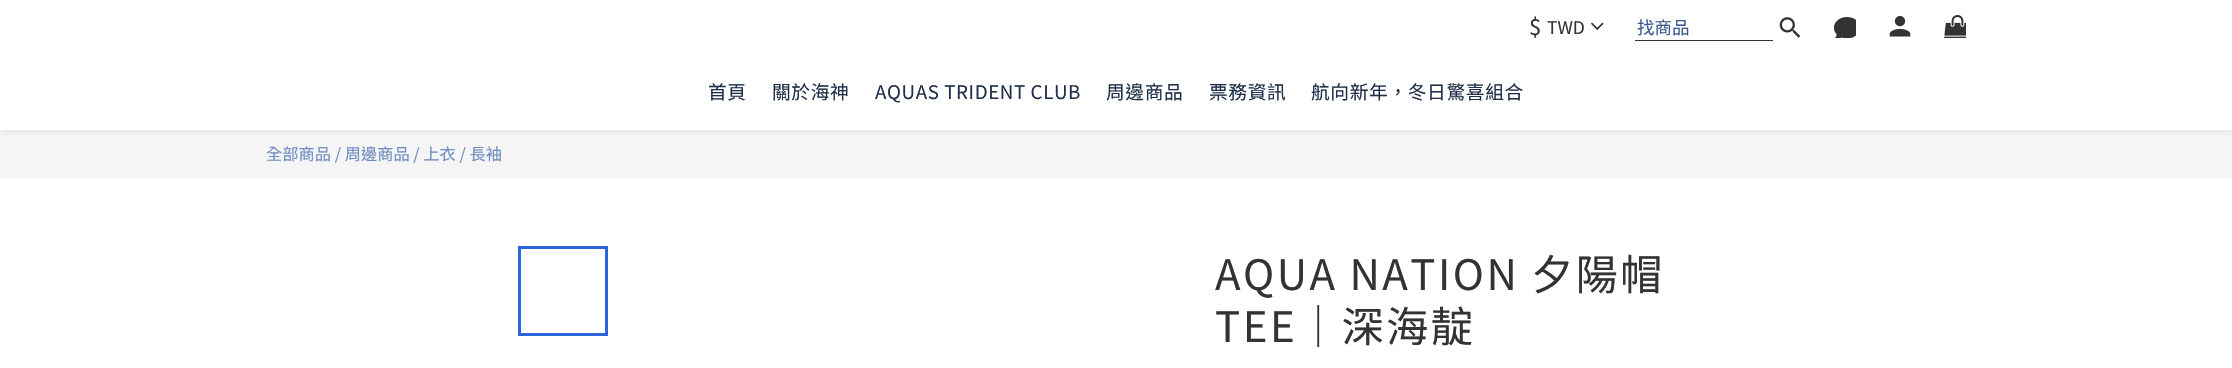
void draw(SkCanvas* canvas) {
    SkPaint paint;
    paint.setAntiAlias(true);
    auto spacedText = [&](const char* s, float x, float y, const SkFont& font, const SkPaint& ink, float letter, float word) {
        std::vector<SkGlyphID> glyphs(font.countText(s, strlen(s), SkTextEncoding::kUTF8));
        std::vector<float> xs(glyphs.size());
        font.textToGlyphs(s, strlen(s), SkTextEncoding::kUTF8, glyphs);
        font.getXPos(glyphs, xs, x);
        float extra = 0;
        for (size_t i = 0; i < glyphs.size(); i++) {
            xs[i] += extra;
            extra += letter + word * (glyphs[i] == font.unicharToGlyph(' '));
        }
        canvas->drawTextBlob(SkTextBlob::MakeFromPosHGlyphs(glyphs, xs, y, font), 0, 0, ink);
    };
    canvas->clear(0xFFFFFFFF);
    paint.setColor(0xFFF5F5F5);
    canvas->drawRect(SkRect::MakeXYWH(0, 130, 2232, 48), paint);
    canvas->save();
    canvas->clipRect(SkRect::MakeXYWH(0, 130, 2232, 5));
    paint.setColor(0x0F000000);
    paint.setMaskFilter(SkMaskFilter::MakeBlur(kNormal_SkBlurStyle, 4));
    canvas->drawRect(SkRect::MakeXYWH(0, 3, 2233, 130), paint);
    paint.setMaskFilter(nullptr);
    canvas->restore();
    SkFont font1(fontMgr->matchFamilyStyle("Noto Sans TC", SkFontStyle::Normal()), 22);
    font1.setSubpixel(true);
    paint.setColor(0xFF333333);
    spacedText("$", 1529, 35, font1, paint, 1, 0);
    SkFont font2(fontMgr->matchFamilyStyle("Noto Sans TC", SkFontStyle::Normal()), 17.5f);
    font2.setSubpixel(true);
    canvas->drawString("TWD", 1547, 34, font2, paint);
    canvas->drawImageRect(SkImages::DeferredFromEncodedData(SkData::MakeFromFileName("img1.png")), SkRect::MakeXYWH(1591, 22, 13, 8), SkSamplingOptions());
    canvas->drawRect(SkRect::MakeXYWH(1635, 40, 138, 1), paint);
    paint.setColor(0xFF3D5A8F);
    canvas->drawString("找商品", 1637, 34, font2, paint);
    canvas->drawImageRect(SkImages::DeferredFromEncodedData(SkData::MakeFromFileName("img2.png")), SkRect::MakeXYWH(1779, 17, 22, 21), SkSamplingOptions());
    canvas->drawImageRect(SkImages::DeferredFromEncodedData(SkData::MakeFromFileName("img3.png")), SkRect::MakeXYWH(1834, 17, 22, 21), SkSamplingOptions());
    canvas->drawImageRect(SkImages::DeferredFromEncodedData(SkData::MakeFromFileName("img4.png")), SkRect::MakeXYWH(1889, 16, 22, 21), SkSamplingOptions());
    canvas->drawImageRect(SkImages::DeferredFromEncodedData(SkData::MakeFromFileName("img5.png")), SkRect::MakeXYWH(1944, 15, 22, 23), SkSamplingOptions());
    SkFont font3(fontMgr->matchFamilyStyle("Noto Sans TC", SkFontStyle::Normal()), 18.75f);
    font3.setSubpixel(true);
    paint.setColor(0xFF1F2E49);
    spacedText("首頁", 708, 99, font3, paint, 0.6f, 0);
    spacedText("關於海神", 772, 99, font3, paint, 0.6f, 0);
    spacedText("AQUAS TRIDENT CLUB", 875, 99, font3, paint, 0.6f, 0);
    spacedText("周邊商品", 1106, 99, font3, paint, 0.6f, 0);
    spacedText("票務資訊", 1209, 99, font3, paint, 0.6f, 0);
    spacedText("航向新年，冬日驚喜組合", 1311, 99, font3, paint, 0.6f, 0);
    SkFont font4(fontMgr->matchFamilyStyle("Noto Sans TC", SkFontStyle::Normal()), 16.25f);
    font4.setSubpixel(true);
    paint.setColor(0xFF708DC2);
    canvas->drawString("全部商品 / 周邊商品 / 上衣 / 長袖", 266, 160, font4, paint);
    paint.setStyle(SkPaint::kStroke_Style);
    paint.setStrokeWidth(3);
    paint.setColor(0xFF2C64DE);
    canvas->drawRect(SkRect::MakeXYWH(519.5f, 247.5f, 87, 87), paint);
    SkFont font5(fontMgr->matchFamilyStyle("Noto Sans TC", SkFontStyle::Normal()), 42);
    font5.setSubpixel(true);
    paint.setStyle(SkPaint::kFill_Style);
    paint.setColor(0xFF333333);
    spacedText("AQUA NATION 夕陽帽", 1215, 290, font5, paint, 2.5f, 0);
    spacedText("TEE｜深海靛", 1215, 342, font5, paint, 2.5f, 0);
}
